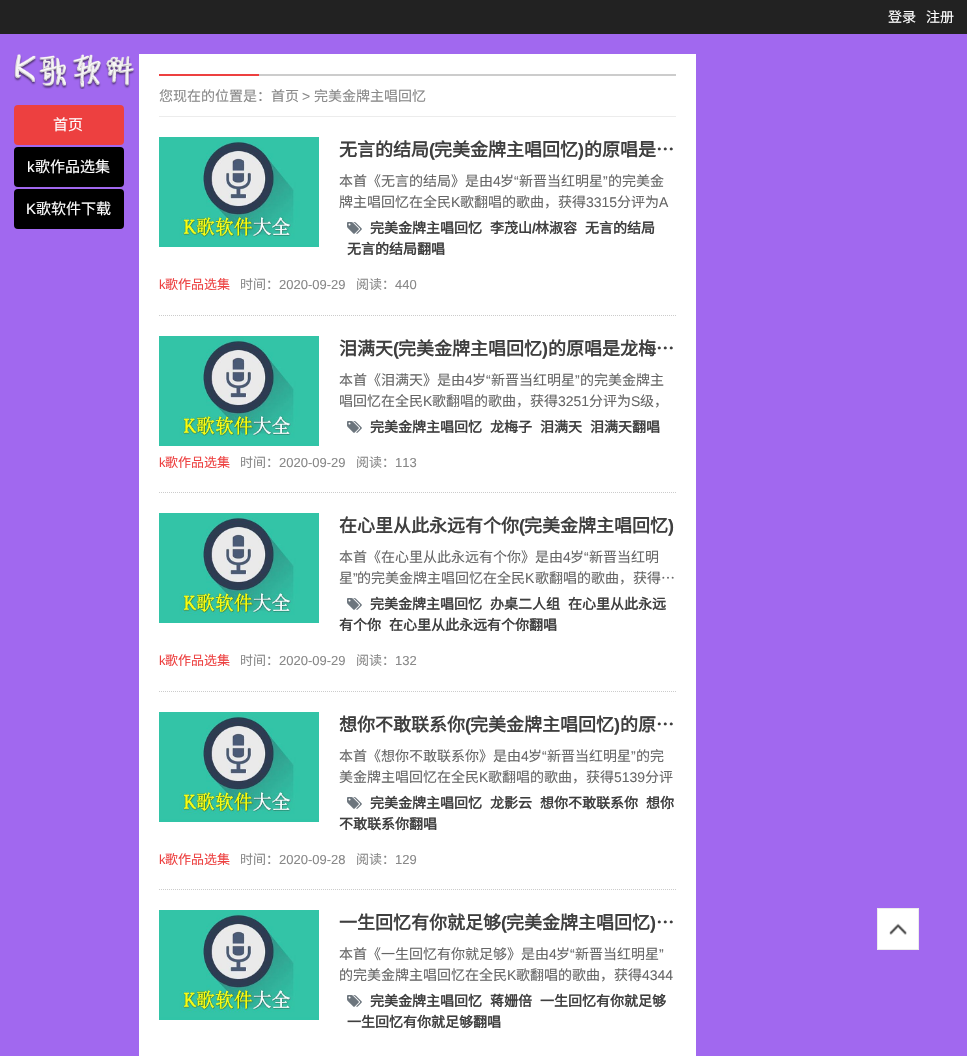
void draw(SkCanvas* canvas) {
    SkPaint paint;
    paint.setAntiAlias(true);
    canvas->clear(0xFFA168EF);
    paint.setColor(0xFF222222);
    canvas->drawRect(SkRect::MakeXYWH(0, 0, 967, 34), paint);
    SkFont font1(fontMgr->matchFamilyStyle("Noto Sans CJK SC", SkFontStyle::Normal()), 14);
    font1.setSubpixel(true);
    paint.setColor(0xFFFFFFFF);
    canvas->drawString("登录", 888, 22, font1, paint);
    canvas->drawString("注册", 926, 22, font1, paint);
    canvas->drawImageRect(SkImages::DeferredFromEncodedData(SkData::MakeFromFileName("img1.png")), SkRect::MakeXYWH(14, 54, 121, 35), SkSamplingOptions());
    paint.setColor(0xFFED4040);
    canvas->drawRoundRect(SkRect::MakeXYWH(14, 105, 110, 40), 4, 4, paint);
    SkFont font2(fontMgr->matchFamilyStyle("Noto Sans CJK SC", SkFontStyle::Normal()), 15);
    font2.setSubpixel(true);
    paint.setColor(0xFFFFFFFF);
    canvas->drawString("首页", 53, 130, font2, paint);
    paint.setColor(0xFF000000);
    canvas->drawRoundRect(SkRect::MakeXYWH(14, 147, 110, 40), 4, 4, paint);
    SkFont font3(fontMgr->matchFamilyStyle("Liberation Sans", SkFontStyle::Normal()), 15);
    font3.setSubpixel(true);
    paint.setColor(0xFFFFFFFF);
    canvas->drawString("k", 27, 172, font3, paint);
    canvas->drawString("歌作品选集", 35, 172, font2, paint);
    paint.setColor(0xFF000000);
    canvas->drawRoundRect(SkRect::MakeXYWH(14, 189, 110, 40), 4, 4, paint);
    paint.setColor(0xFFFFFFFF);
    canvas->drawString("K", 26, 214, font3, paint);
    canvas->drawString("歌软件下载", 36, 214, font2, paint);
    canvas->drawRect(SkRect::MakeXYWH(139, 54, 557, 1002), paint);
    paint.setColor(0xFFCCCCCC);
    canvas->drawRect(SkRect::MakeXYWH(259, 74, 417, 2), paint);
    paint.setColor(0xFFECECEC);
    canvas->drawRect(SkRect::MakeXYWH(159, 116, 517, 1), paint);
    paint.setColor(0xFFED4040);
    canvas->drawRect(SkRect::MakeXYWH(159, 74, 100, 2), paint);
    paint.setColor(0xFF888888);
    canvas->drawString("您现在的位置是：首页", 159, 101, font1, paint);
    SkFont font4(fontMgr->matchFamilyStyle("Liberation Sans", SkFontStyle::Normal()), 14);
    font4.setSubpixel(true);
    canvas->drawString(">", 302, 101, font4, paint);
    canvas->drawString("完美金牌主唱回忆", 314, 101, font1, paint);
    paint.setStyle(SkPaint::kStroke_Style);
    paint.setStrokeWidth(1);
    paint.setColor(0xFFCCCCCC);
    paint.setPathEffect(SkDashPathEffect::Make({{1, 1}}, 0));
    canvas->drawPath(SkPathBuilder().moveTo(159, 315.5f).lineTo(676, 315.5f).detach(), paint);
    paint.setPathEffect(nullptr);
    canvas->drawImageRect(SkImages::DeferredFromEncodedData(SkData::MakeFromFileName("img2.png")), SkRect::MakeXYWH(159, 137, 160, 110), SkSamplingOptions());
    SkFont font5(fontMgr->matchFamilyStyle("Noto Sans CJK SC", SkFontStyle::Bold()), 18);
    font5.setSubpixel(true);
    paint.setStyle(SkPaint::kFill_Style);
    paint.setColor(0xFF3F3F3F);
    canvas->drawString("无言的结局", 339, 156, font5, paint);
    SkFont font6(fontMgr->matchFamilyStyle("Liberation Sans", SkFontStyle::Bold()), 18);
    font6.setSubpixel(true);
    canvas->drawString("(", 429, 156, font6, paint);
    canvas->drawString("完美金牌主唱回忆", 434, 156, font5, paint);
    canvas->drawString(")", 578, 156, font6, paint);
    canvas->drawString("的原唱是…", 584, 156, font5, paint);
    paint.setColor(0xFF666666);
    canvas->drawString("本首《无言的结局》是由", 339, 186, font1, paint);
    canvas->drawString("4", 493, 186, font4, paint);
    canvas->drawString("岁", 500, 186, font1, paint);
    canvas->drawString("“", 514, 186, font4, paint);
    canvas->drawString("新晋当红明星", 519, 186, font1, paint);
    canvas->drawString("”", 603, 186, font4, paint);
    canvas->drawString("的完美金", 608, 186, font1, paint);
    canvas->drawString("牌主唱回忆在全民", 339, 207, font1, paint);
    canvas->drawString("K", 451, 207, font4, paint);
    canvas->drawString("歌翻唱的歌曲，获得", 460, 207, font1, paint);
    canvas->drawString("3315", 586, 207, font4, paint);
    canvas->drawString("分评为", 617, 207, font1, paint);
    canvas->drawString("A", 659, 207, font4, paint);
    canvas->drawImageRect(SkImages::DeferredFromEncodedData(SkData::MakeFromFileName("img3.png")), SkRect::MakeXYWH(347, 222, 15, 12), SkSamplingOptions());
    SkFont font7(fontMgr->matchFamilyStyle("Noto Sans CJK SC", SkFontStyle::Bold()), 14);
    font7.setSubpixel(true);
    paint.setColor(0xFF3F3F3F);
    canvas->drawString("完美金牌主唱回忆", 370, 233, font7, paint);
    canvas->drawString("李茂山", 490, 233, font7, paint);
    SkFont font8(fontMgr->matchFamilyStyle("Liberation Sans", SkFontStyle::Bold()), 14);
    font8.setSubpixel(true);
    canvas->drawString("/", 532, 233, font8, paint);
    canvas->drawString("林淑容", 535, 233, font7, paint);
    canvas->drawString("无言的结局", 585, 233, font7, paint);
    canvas->drawString("无言的结局翻唱", 347, 254, font7, paint);
    SkFont font9(fontMgr->matchFamilyStyle("Liberation Sans", SkFontStyle::Normal()), 13);
    font9.setSubpixel(true);
    paint.setColor(0xFFED4040);
    canvas->drawString("k", 159, 289, font9, paint);
    SkFont font10(fontMgr->matchFamilyStyle("Noto Sans CJK SC", SkFontStyle::Normal()), 13);
    font10.setSubpixel(true);
    canvas->drawString("歌作品选集", 165, 289, font10, paint);
    paint.setColor(0xFF888888);
    canvas->drawString("时间：", 240, 289, font10, paint);
    canvas->drawString("2020-09-29", 279, 289, font9, paint);
    canvas->drawString("阅读：", 356, 289, font10, paint);
    canvas->drawString("440", 395, 289, font9, paint);
    paint.setStyle(SkPaint::kStroke_Style);
    paint.setColor(0xFFCCCCCC);
    paint.setPathEffect(SkDashPathEffect::Make({{1, 1}}, 0));
    canvas->drawPath(SkPathBuilder().moveTo(159, 492.5f).lineTo(676, 492.5f).detach(), paint);
    paint.setPathEffect(nullptr);
    canvas->drawImageRect(SkImages::DeferredFromEncodedData(SkData::MakeFromFileName("img2.png")), SkRect::MakeXYWH(159, 336, 160, 110), SkSamplingOptions());
    paint.setStyle(SkPaint::kFill_Style);
    paint.setColor(0xFF3F3F3F);
    canvas->drawString("泪满天", 339, 355, font5, paint);
    canvas->drawString("(", 393, 355, font6, paint);
    canvas->drawString("完美金牌主唱回忆", 398, 355, font5, paint);
    canvas->drawString(")", 542, 355, font6, paint);
    canvas->drawString("的原唱是龙梅…", 548, 355, font5, paint);
    paint.setColor(0xFF666666);
    canvas->drawString("本首《泪满天》是由", 339, 385, font1, paint);
    canvas->drawString("4", 465, 385, font4, paint);
    canvas->drawString("岁", 472, 385, font1, paint);
    canvas->drawString("“", 486, 385, font4, paint);
    canvas->drawString("新晋当红明星", 491, 385, font1, paint);
    canvas->drawString("”", 575, 385, font4, paint);
    canvas->drawString("的完美金牌主", 580, 385, font1, paint);
    canvas->drawString("唱回忆在全民", 339, 406, font1, paint);
    canvas->drawString("K", 423, 406, font4, paint);
    canvas->drawString("歌翻唱的歌曲，获得", 432, 406, font1, paint);
    canvas->drawString("3251", 558, 406, font4, paint);
    canvas->drawString("分评为", 589, 406, font1, paint);
    canvas->drawString("S", 631, 406, font4, paint);
    canvas->drawString("级，", 640, 406, font1, paint);
    canvas->drawImageRect(SkImages::DeferredFromEncodedData(SkData::MakeFromFileName("img3.png")), SkRect::MakeXYWH(347, 421, 15, 12), SkSamplingOptions());
    paint.setColor(0xFF3F3F3F);
    canvas->drawString("完美金牌主唱回忆", 370, 432, font7, paint);
    canvas->drawString("龙梅子", 490, 432, font7, paint);
    canvas->drawString("泪满天", 540, 432, font7, paint);
    canvas->drawString("泪满天翻唱", 590, 432, font7, paint);
    paint.setColor(0xFFED4040);
    canvas->drawString("k", 159, 467, font9, paint);
    canvas->drawString("歌作品选集", 165, 467, font10, paint);
    paint.setColor(0xFF888888);
    canvas->drawString("时间：", 240, 467, font10, paint);
    canvas->drawString("2020-09-29", 279, 467, font9, paint);
    canvas->drawString("阅读：", 356, 467, font10, paint);
    canvas->drawString("113", 395, 467, font9, paint);
    paint.setStyle(SkPaint::kStroke_Style);
    paint.setColor(0xFFCCCCCC);
    paint.setPathEffect(SkDashPathEffect::Make({{1, 1}}, 0));
    canvas->drawPath(SkPathBuilder().moveTo(159, 691.5f).lineTo(676, 691.5f).detach(), paint);
    paint.setPathEffect(nullptr);
    canvas->drawImageRect(SkImages::DeferredFromEncodedData(SkData::MakeFromFileName("img2.png")), SkRect::MakeXYWH(159, 513, 160, 110), SkSamplingOptions());
    paint.setStyle(SkPaint::kFill_Style);
    paint.setColor(0xFF3F3F3F);
    canvas->drawString("在心里从此永远有个你", 339, 532, font5, paint);
    canvas->drawString("(", 519, 532, font6, paint);
    canvas->drawString("完美金牌主唱回忆", 524, 532, font5, paint);
    canvas->drawString(")", 668, 532, font6, paint);
    paint.setColor(0xFF666666);
    canvas->drawString("本首《在心里从此永远有个你》是由", 339, 562, font1, paint);
    canvas->drawString("4", 563, 562, font4, paint);
    canvas->drawString("岁", 570, 562, font1, paint);
    canvas->drawString("“", 584, 562, font4, paint);
    canvas->drawString("新晋当红明", 589, 562, font1, paint);
    canvas->drawString("星", 339, 583, font1, paint);
    canvas->drawString("”", 353, 583, font4, paint);
    canvas->drawString("的完美金牌主唱回忆在全民", 357, 583, font1, paint);
    canvas->drawString("K", 525, 583, font4, paint);
    canvas->drawString("歌翻唱的歌曲，获得…", 535, 583, font1, paint);
    canvas->drawImageRect(SkImages::DeferredFromEncodedData(SkData::MakeFromFileName("img3.png")), SkRect::MakeXYWH(347, 598, 15, 12), SkSamplingOptions());
    paint.setColor(0xFF3F3F3F);
    canvas->drawString("完美金牌主唱回忆", 370, 609, font7, paint);
    canvas->drawString("办桌二人组", 490, 609, font7, paint);
    canvas->drawString("在心里从此永远", 568, 609, font7, paint);
    canvas->drawString("有个你", 339, 630, font7, paint);
    canvas->drawString("在心里从此永远有个你翻唱", 389, 630, font7, paint);
    paint.setColor(0xFFED4040);
    canvas->drawString("k", 159, 665, font9, paint);
    canvas->drawString("歌作品选集", 165, 665, font10, paint);
    paint.setColor(0xFF888888);
    canvas->drawString("时间：", 240, 665, font10, paint);
    canvas->drawString("2020-09-29", 279, 665, font9, paint);
    canvas->drawString("阅读：", 356, 665, font10, paint);
    canvas->drawString("132", 395, 665, font9, paint);
    paint.setStyle(SkPaint::kStroke_Style);
    paint.setColor(0xFFCCCCCC);
    paint.setPathEffect(SkDashPathEffect::Make({{1, 1}}, 0));
    canvas->drawPath(SkPathBuilder().moveTo(159, 889.5f).lineTo(676, 889.5f).detach(), paint);
    paint.setPathEffect(nullptr);
    canvas->drawImageRect(SkImages::DeferredFromEncodedData(SkData::MakeFromFileName("img2.png")), SkRect::MakeXYWH(159, 712, 160, 110), SkSamplingOptions());
    paint.setStyle(SkPaint::kFill_Style);
    paint.setColor(0xFF3F3F3F);
    canvas->drawString("想你不敢联系你", 339, 731, font5, paint);
    canvas->drawString("(", 465, 731, font6, paint);
    canvas->drawString("完美金牌主唱回忆", 470, 731, font5, paint);
    canvas->drawString(")", 614, 731, font6, paint);
    canvas->drawString("的原…", 620, 731, font5, paint);
    paint.setColor(0xFF666666);
    canvas->drawString("本首《想你不敢联系你》是由", 339, 761, font1, paint);
    canvas->drawString("4", 521, 761, font4, paint);
    canvas->drawString("岁", 528, 761, font1, paint);
    canvas->drawString("“", 542, 761, font4, paint);
    canvas->drawString("新晋当红明星", 547, 761, font1, paint);
    canvas->drawString("”", 631, 761, font4, paint);
    canvas->drawString("的完", 636, 761, font1, paint);
    canvas->drawString("美金牌主唱回忆在全民", 339, 782, font1, paint);
    canvas->drawString("K", 479, 782, font4, paint);
    canvas->drawString("歌翻唱的歌曲，获得", 488, 782, font1, paint);
    canvas->drawString("5139", 614, 782, font4, paint);
    canvas->drawString("分评", 645, 782, font1, paint);
    canvas->drawImageRect(SkImages::DeferredFromEncodedData(SkData::MakeFromFileName("img3.png")), SkRect::MakeXYWH(347, 797, 15, 12), SkSamplingOptions());
    paint.setColor(0xFF3F3F3F);
    canvas->drawString("完美金牌主唱回忆", 370, 808, font7, paint);
    canvas->drawString("龙影云", 490, 808, font7, paint);
    canvas->drawString("想你不敢联系你", 540, 808, font7, paint);
    canvas->drawString("想你", 646, 808, font7, paint);
    canvas->drawString("不敢联系你翻唱", 339, 829, font7, paint);
    paint.setColor(0xFFED4040);
    canvas->drawString("k", 159, 864, font9, paint);
    canvas->drawString("歌作品选集", 165, 864, font10, paint);
    paint.setColor(0xFF888888);
    canvas->drawString("时间：", 240, 864, font10, paint);
    canvas->drawString("2020-09-28", 279, 864, font9, paint);
    canvas->drawString("阅读：", 356, 864, font10, paint);
    canvas->drawString("129", 395, 864, font9, paint);
    canvas->drawImageRect(SkImages::DeferredFromEncodedData(SkData::MakeFromFileName("img2.png")), SkRect::MakeXYWH(159, 910, 160, 110), SkSamplingOptions());
    paint.setColor(0xFF3F3F3F);
    canvas->drawString("一生回忆有你就足够", 339, 929, font5, paint);
    canvas->drawString("(", 501, 929, font6, paint);
    canvas->drawString("完美金牌主唱回忆", 506, 929, font5, paint);
    canvas->drawString(")", 650, 929, font6, paint);
    canvas->drawString("…", 656, 929, font5, paint);
    paint.setColor(0xFF666666);
    canvas->drawString("本首《一生回忆有你就足够》是由", 339, 959, font1, paint);
    canvas->drawString("4", 549, 959, font4, paint);
    canvas->drawString("岁", 556, 959, font1, paint);
    canvas->drawString("“", 570, 959, font4, paint);
    canvas->drawString("新晋当红明星", 575, 959, font1, paint);
    canvas->drawString("”", 659, 959, font4, paint);
    canvas->drawString("的完美金牌主唱回忆在全民", 339, 980, font1, paint);
    canvas->drawString("K", 507, 980, font4, paint);
    canvas->drawString("歌翻唱的歌曲，获得", 516, 980, font1, paint);
    canvas->drawString("4344", 642, 980, font4, paint);
    canvas->drawImageRect(SkImages::DeferredFromEncodedData(SkData::MakeFromFileName("img3.png")), SkRect::MakeXYWH(347, 995, 15, 12), SkSamplingOptions());
    paint.setColor(0xFF3F3F3F);
    canvas->drawString("完美金牌主唱回忆", 370, 1006, font7, paint);
    canvas->drawString("蒋姗倍", 490, 1006, font7, paint);
    canvas->drawString("一生回忆有你就足够", 540, 1006, font7, paint);
    canvas->drawString("一生回忆有你就足够翻唱", 347, 1027, font7, paint);
    paint.setColor(0xFFFFFFFF);
    canvas->drawRect(SkRect::MakeXYWH(878, 909, 40, 40), paint);
    canvas->drawImageRect(SkImages::DeferredFromEncodedData(SkData::MakeFromFileName("img4.png")), SkRect::MakeXYWH(889, 923, 18, 12), SkSamplingOptions());
    paint.setStyle(SkPaint::kStroke_Style);
    paint.setColor(0xFFECECEC);
    canvas->drawRect(SkRect::MakeXYWH(877.5f, 908.5f, 41, 41), paint);
}
